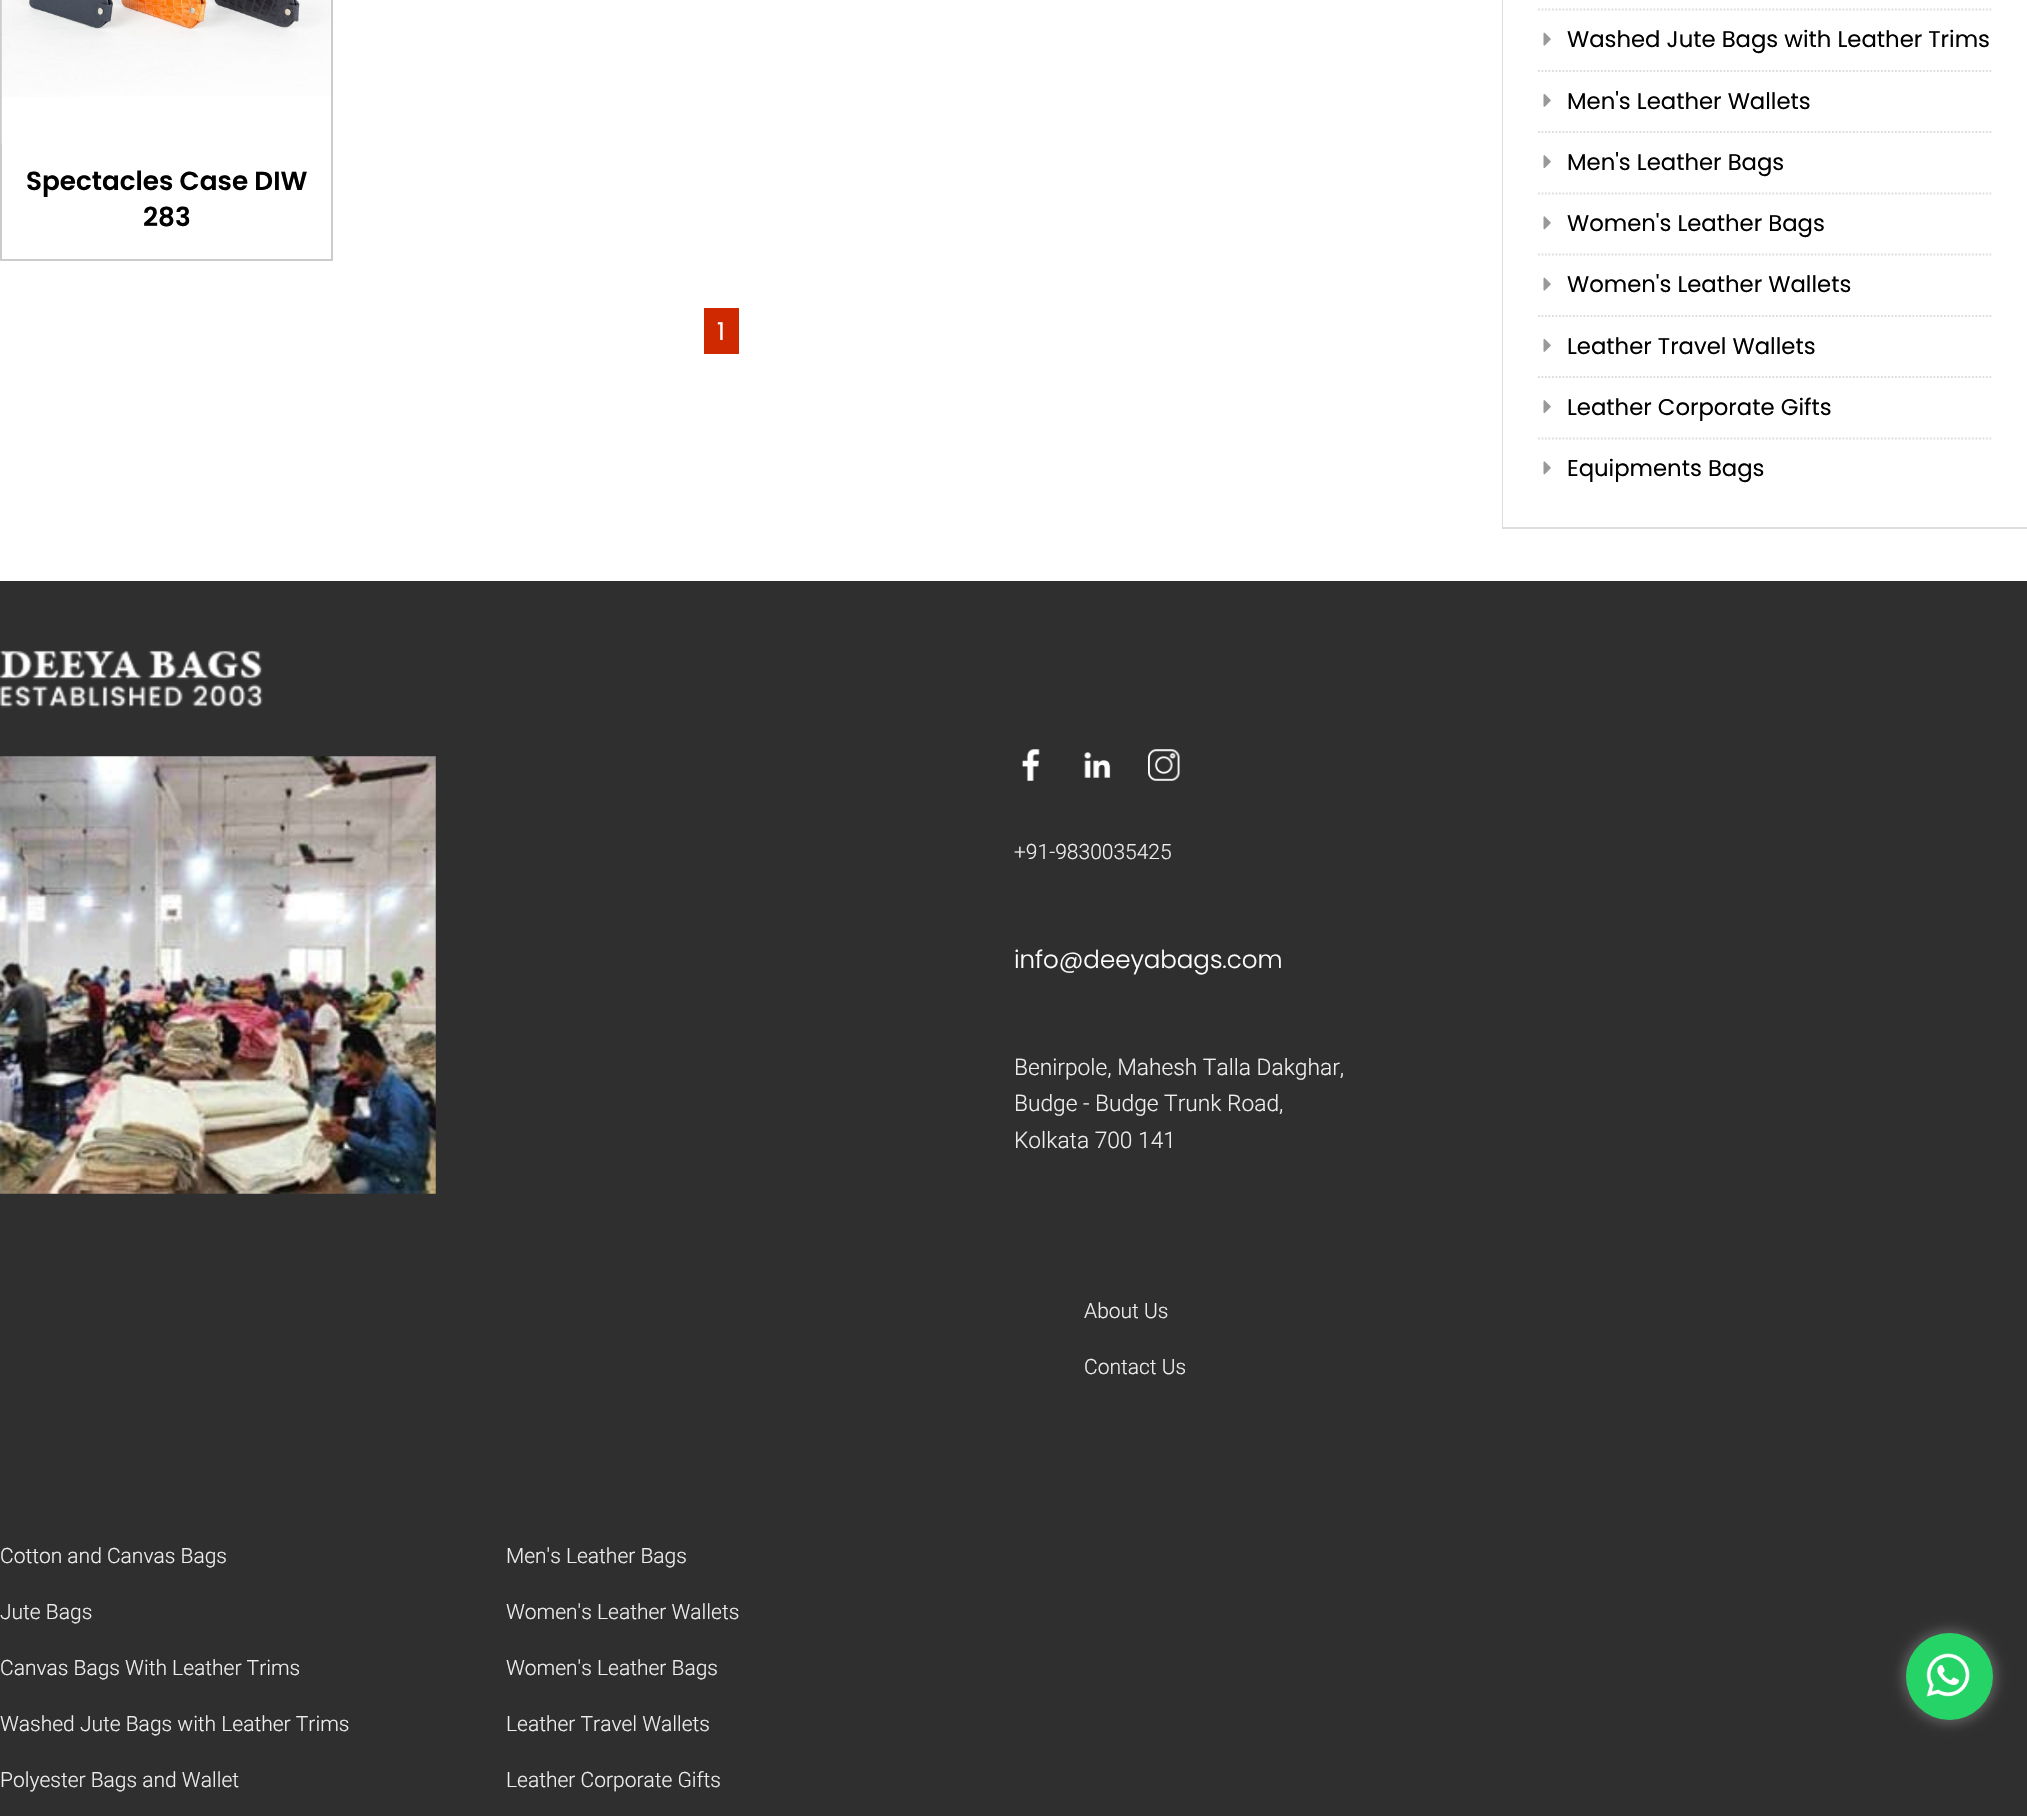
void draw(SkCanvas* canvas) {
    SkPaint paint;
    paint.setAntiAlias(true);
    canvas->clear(0xFFFFFFFF);
    paint.setStyle(SkPaint::kStroke_Style);
    paint.setStrokeWidth(2);
    paint.setColor(0xFFCCCCCC);
    canvas->drawRect(SkRect::MakeXYWH(1, -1, 331, 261), paint);
    canvas->drawImageRect(SkImages::DeferredFromEncodedData(SkData::MakeFromFileName("img1.png")), SkRect::MakeXYWH(1, 0, 330, 144), SkSamplingOptions());
    SkFont font1(fontMgr->matchFamilyStyle("Poppins", SkFontStyle(600, SkFontStyle::kNormal_Width, SkFontStyle::kUpright_Slant)), 26.25f);
    font1.setSubpixel(true);
    paint.setStyle(SkPaint::kFill_Style);
    paint.setColor(0xFF000000);
    canvas->drawString("Spectacles Case DIW", 26, 190, font1, paint);
    canvas->drawString("283", 143, 226, font1, paint);
    paint.setColor(0xFFCE2900);
    canvas->drawRect(SkRect::MakeXYWH(704, 308, 35, 46), paint);
    SkFont font2(fontMgr->matchFamilyStyle("Poppins", SkFontStyle::Normal()), 24.5f);
    font2.setSubpixel(true);
    paint.setColor(0xFFFFFFFF);
    canvas->drawString("1", 717, 340, font2, paint);
    paint.setStyle(SkPaint::kStroke_Style);
    paint.setColor(0xFFDDDDDD);
    canvas->drawRect(SkRect::MakeXYWH(1503, -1, 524, 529), paint);
    paint.setStyle(SkPaint::kFill_Style);
    paint.setColor(0xFFFFFFFF);
    canvas->drawRect(SkRect::MakeXYWH(1503, 0, 524, 527), paint);
    paint.setStyle(SkPaint::kStroke_Style);
    paint.setStrokeWidth(1.8f);
    paint.setColor(0xFFDDDDDD);
    paint.setPathEffect(SkDashPathEffect::Make({{1.75f, 1.75f}}, 0));
    canvas->drawPath(SkPathBuilder().moveTo(1538, 9.5f).lineTo(1991.5f, 9.5f).detach(), paint);
    paint.setPathEffect(nullptr);
    paint.setPathEffect(SkDashPathEffect::Make({{1.75f, 1.75f}}, 0));
    canvas->drawPath(SkPathBuilder().moveTo(1538, 71).lineTo(1991.5f, 71).detach(), paint);
    paint.setPathEffect(nullptr);
    canvas->drawImageRect(SkImages::DeferredFromEncodedData(SkData::MakeFromFileName("img2.png")), SkRect::MakeXYWH(1543, 32, 8, 14), SkSamplingOptions());
    SkFont font3(fontMgr->matchFamilyStyle("Poppins", SkFontStyle::Normal()), 22.75f);
    font3.setSubpixel(true);
    paint.setStyle(SkPaint::kFill_Style);
    paint.setColor(0xFF000000);
    canvas->drawString("Washed Jute Bags with Leather Trims", 1567, 47, font3, paint);
    paint.setStyle(SkPaint::kStroke_Style);
    paint.setColor(0xFFDDDDDD);
    paint.setPathEffect(SkDashPathEffect::Make({{1.75f, 1.75f}}, 0));
    canvas->drawPath(SkPathBuilder().moveTo(1538, 132).lineTo(1991.5f, 132).detach(), paint);
    paint.setPathEffect(nullptr);
    canvas->drawImageRect(SkImages::DeferredFromEncodedData(SkData::MakeFromFileName("img3.png")), SkRect::MakeXYWH(1543, 94, 8, 13), SkSamplingOptions());
    paint.setStyle(SkPaint::kFill_Style);
    paint.setColor(0xFF000000);
    canvas->drawString("Men's Leather Wallets", 1567, 109, font3, paint);
    paint.setStyle(SkPaint::kStroke_Style);
    paint.setColor(0xFFDDDDDD);
    paint.setPathEffect(SkDashPathEffect::Make({{1.75f, 1.75f}}, 0));
    canvas->drawPath(SkPathBuilder().moveTo(1538, 193.5f).lineTo(1991.5f, 193.5f).detach(), paint);
    paint.setPathEffect(nullptr);
    canvas->drawImageRect(SkImages::DeferredFromEncodedData(SkData::MakeFromFileName("img4.png")), SkRect::MakeXYWH(1543, 155, 8, 13), SkSamplingOptions());
    paint.setStyle(SkPaint::kFill_Style);
    paint.setColor(0xFF000000);
    canvas->drawString("Men's Leather Bags", 1567, 170, font3, paint);
    paint.setStyle(SkPaint::kStroke_Style);
    paint.setColor(0xFFDDDDDD);
    paint.setPathEffect(SkDashPathEffect::Make({{1.75f, 1.75f}}, 0));
    canvas->drawPath(SkPathBuilder().moveTo(1538, 254.5f).lineTo(1991.5f, 254.5f).detach(), paint);
    paint.setPathEffect(nullptr);
    canvas->drawImageRect(SkImages::DeferredFromEncodedData(SkData::MakeFromFileName("img5.png")), SkRect::MakeXYWH(1543, 216, 8, 14), SkSamplingOptions());
    paint.setStyle(SkPaint::kFill_Style);
    paint.setColor(0xFF000000);
    canvas->drawString("Women's Leather Bags", 1567, 231, font3, paint);
    paint.setStyle(SkPaint::kStroke_Style);
    paint.setColor(0xFFDDDDDD);
    paint.setPathEffect(SkDashPathEffect::Make({{1.75f, 1.75f}}, 0));
    canvas->drawPath(SkPathBuilder().moveTo(1538, 316).lineTo(1991.5f, 316).detach(), paint);
    paint.setPathEffect(nullptr);
    canvas->drawImageRect(SkImages::DeferredFromEncodedData(SkData::MakeFromFileName("img2.png")), SkRect::MakeXYWH(1543, 277, 8, 14), SkSamplingOptions());
    paint.setStyle(SkPaint::kFill_Style);
    paint.setColor(0xFF000000);
    canvas->drawString("Women's Leather Wallets", 1567, 292, font3, paint);
    paint.setStyle(SkPaint::kStroke_Style);
    paint.setColor(0xFFDDDDDD);
    paint.setPathEffect(SkDashPathEffect::Make({{1.75f, 1.75f}}, 0));
    canvas->drawPath(SkPathBuilder().moveTo(1538, 377).lineTo(1991.5f, 377).detach(), paint);
    paint.setPathEffect(nullptr);
    canvas->drawImageRect(SkImages::DeferredFromEncodedData(SkData::MakeFromFileName("img3.png")), SkRect::MakeXYWH(1543, 339, 8, 13), SkSamplingOptions());
    paint.setStyle(SkPaint::kFill_Style);
    paint.setColor(0xFF000000);
    canvas->drawString("Leather Travel Wallets", 1567, 354, font3, paint);
    paint.setStyle(SkPaint::kStroke_Style);
    paint.setColor(0xFFDDDDDD);
    paint.setPathEffect(SkDashPathEffect::Make({{1.75f, 1.75f}}, 0));
    canvas->drawPath(SkPathBuilder().moveTo(1538, 438.5f).lineTo(1991.5f, 438.5f).detach(), paint);
    paint.setPathEffect(nullptr);
    canvas->drawImageRect(SkImages::DeferredFromEncodedData(SkData::MakeFromFileName("img4.png")), SkRect::MakeXYWH(1543, 400, 8, 13), SkSamplingOptions());
    paint.setStyle(SkPaint::kFill_Style);
    paint.setColor(0xFF000000);
    canvas->drawString("Leather Corporate Gifts", 1567, 415, font3, paint);
    canvas->drawImageRect(SkImages::DeferredFromEncodedData(SkData::MakeFromFileName("img5.png")), SkRect::MakeXYWH(1543, 461, 8, 14), SkSamplingOptions());
    canvas->drawString("Equipments Bags", 1567, 476, font3, paint);
    paint.setColor(0xFF2F2F2F);
    canvas->drawRect(SkRect::MakeXYWH(0, 581, 2027, 1235), paint);
    canvas->drawImageRect(SkImages::DeferredFromEncodedData(SkData::MakeFromFileName("img6.png")), SkRect::MakeXYWH(0, 650, 263, 58), SkSamplingOptions());
    canvas->drawImageRect(SkImages::DeferredFromEncodedData(SkData::MakeFromFileName("img7.png")), SkRect::MakeXYWH(0, 756, 436, 438), SkSamplingOptions());
    canvas->drawImageRect(SkImages::DeferredFromEncodedData(SkData::MakeFromFileName("img8.png")), SkRect::MakeXYWH(1022, 749, 18, 32), SkSamplingOptions());
    canvas->drawImageRect(SkImages::DeferredFromEncodedData(SkData::MakeFromFileName("img9.png")), SkRect::MakeXYWH(1084, 752, 27, 26), SkSamplingOptions());
    canvas->drawImageRect(SkImages::DeferredFromEncodedData(SkData::MakeFromFileName("img10.png")), SkRect::MakeXYWH(1148, 749, 32, 32), SkSamplingOptions());
    SkFont font4(fontMgr->matchFamilyStyle("Roboto", SkFontStyle(300, SkFontStyle::kNormal_Width, SkFontStyle::kUpright_Slant)), 21);
    font4.setSubpixel(true);
    paint.setColor(0xFFEEEEEE);
    canvas->drawString("+91-9830035425", 1014, 859, font4, paint);
    SkFont font5(fontMgr->matchFamilyStyle("Poppins", SkFontStyle(300, SkFontStyle::kNormal_Width, SkFontStyle::kUpright_Slant)), 24.5f);
    font5.setSubpixel(true);
    paint.setColor(0xFFFFFFFF);
    canvas->drawString("info@deeyabags.com", 1014, 968, font5, paint);
    SkFont font6(fontMgr->matchFamilyStyle("Roboto", SkFontStyle(300, SkFontStyle::kNormal_Width, SkFontStyle::kUpright_Slant)), 22.75f);
    font6.setSubpixel(true);
    paint.setColor(0xFFEEEEEE);
    canvas->drawString("Benirpole, Mahesh Talla Dakghar,", 1014, 1075, font6, paint);
    canvas->drawString("Budge - Budge Trunk Road,", 1014, 1111, font6, paint);
    canvas->drawString("Kolkata 700 141", 1014, 1148, font6, paint);
    canvas->drawString("About Us", 1084, 1318, font4, paint);
    canvas->drawString("Contact Us", 1084, 1374, font4, paint);
    canvas->drawString("Cotton and Canvas Bags", 0, 1563, font4, paint);
    canvas->drawString("Men's Leather Bags", 506, 1563, font4, paint);
    canvas->drawString("Jute Bags", 0, 1619, font4, paint);
    canvas->drawString("Women's Leather Wallets", 506, 1619, font4, paint);
    canvas->drawString("Canvas Bags With Leather Trims", 0, 1675, font4, paint);
    canvas->drawString("Women's Leather Bags", 506, 1675, font4, paint);
    canvas->drawString("Washed Jute Bags with Leather Trims", 0, 1731, font4, paint);
    canvas->drawString("Leather Travel Wallets", 506, 1731, font4, paint);
    canvas->drawString("Polyester Bags and Wallet", 0, 1787, font4, paint);
    canvas->drawString("Leather Corporate Gifts", 506, 1787, font4, paint);
    paint.setColor(0x80888888);
    paint.setMaskFilter(SkMaskFilter::MakeBlur(kNormal_SkBlurStyle, 6));
    canvas->drawRoundRect(SkRect::MakeXYWH(1902, 1629, 95, 95), 47.5f, 47.5f, paint);
    paint.setMaskFilter(nullptr);
    paint.setColor(0xFF25D367);
    canvas->drawCircle(1949.5f, 1676.5f, 43.5f, paint);
    canvas->drawImageRect(SkImages::DeferredFromEncodedData(SkData::MakeFromFileName("img11.png")), SkRect::MakeXYWH(1926, 1653, 44, 44), SkSamplingOptions());
}
